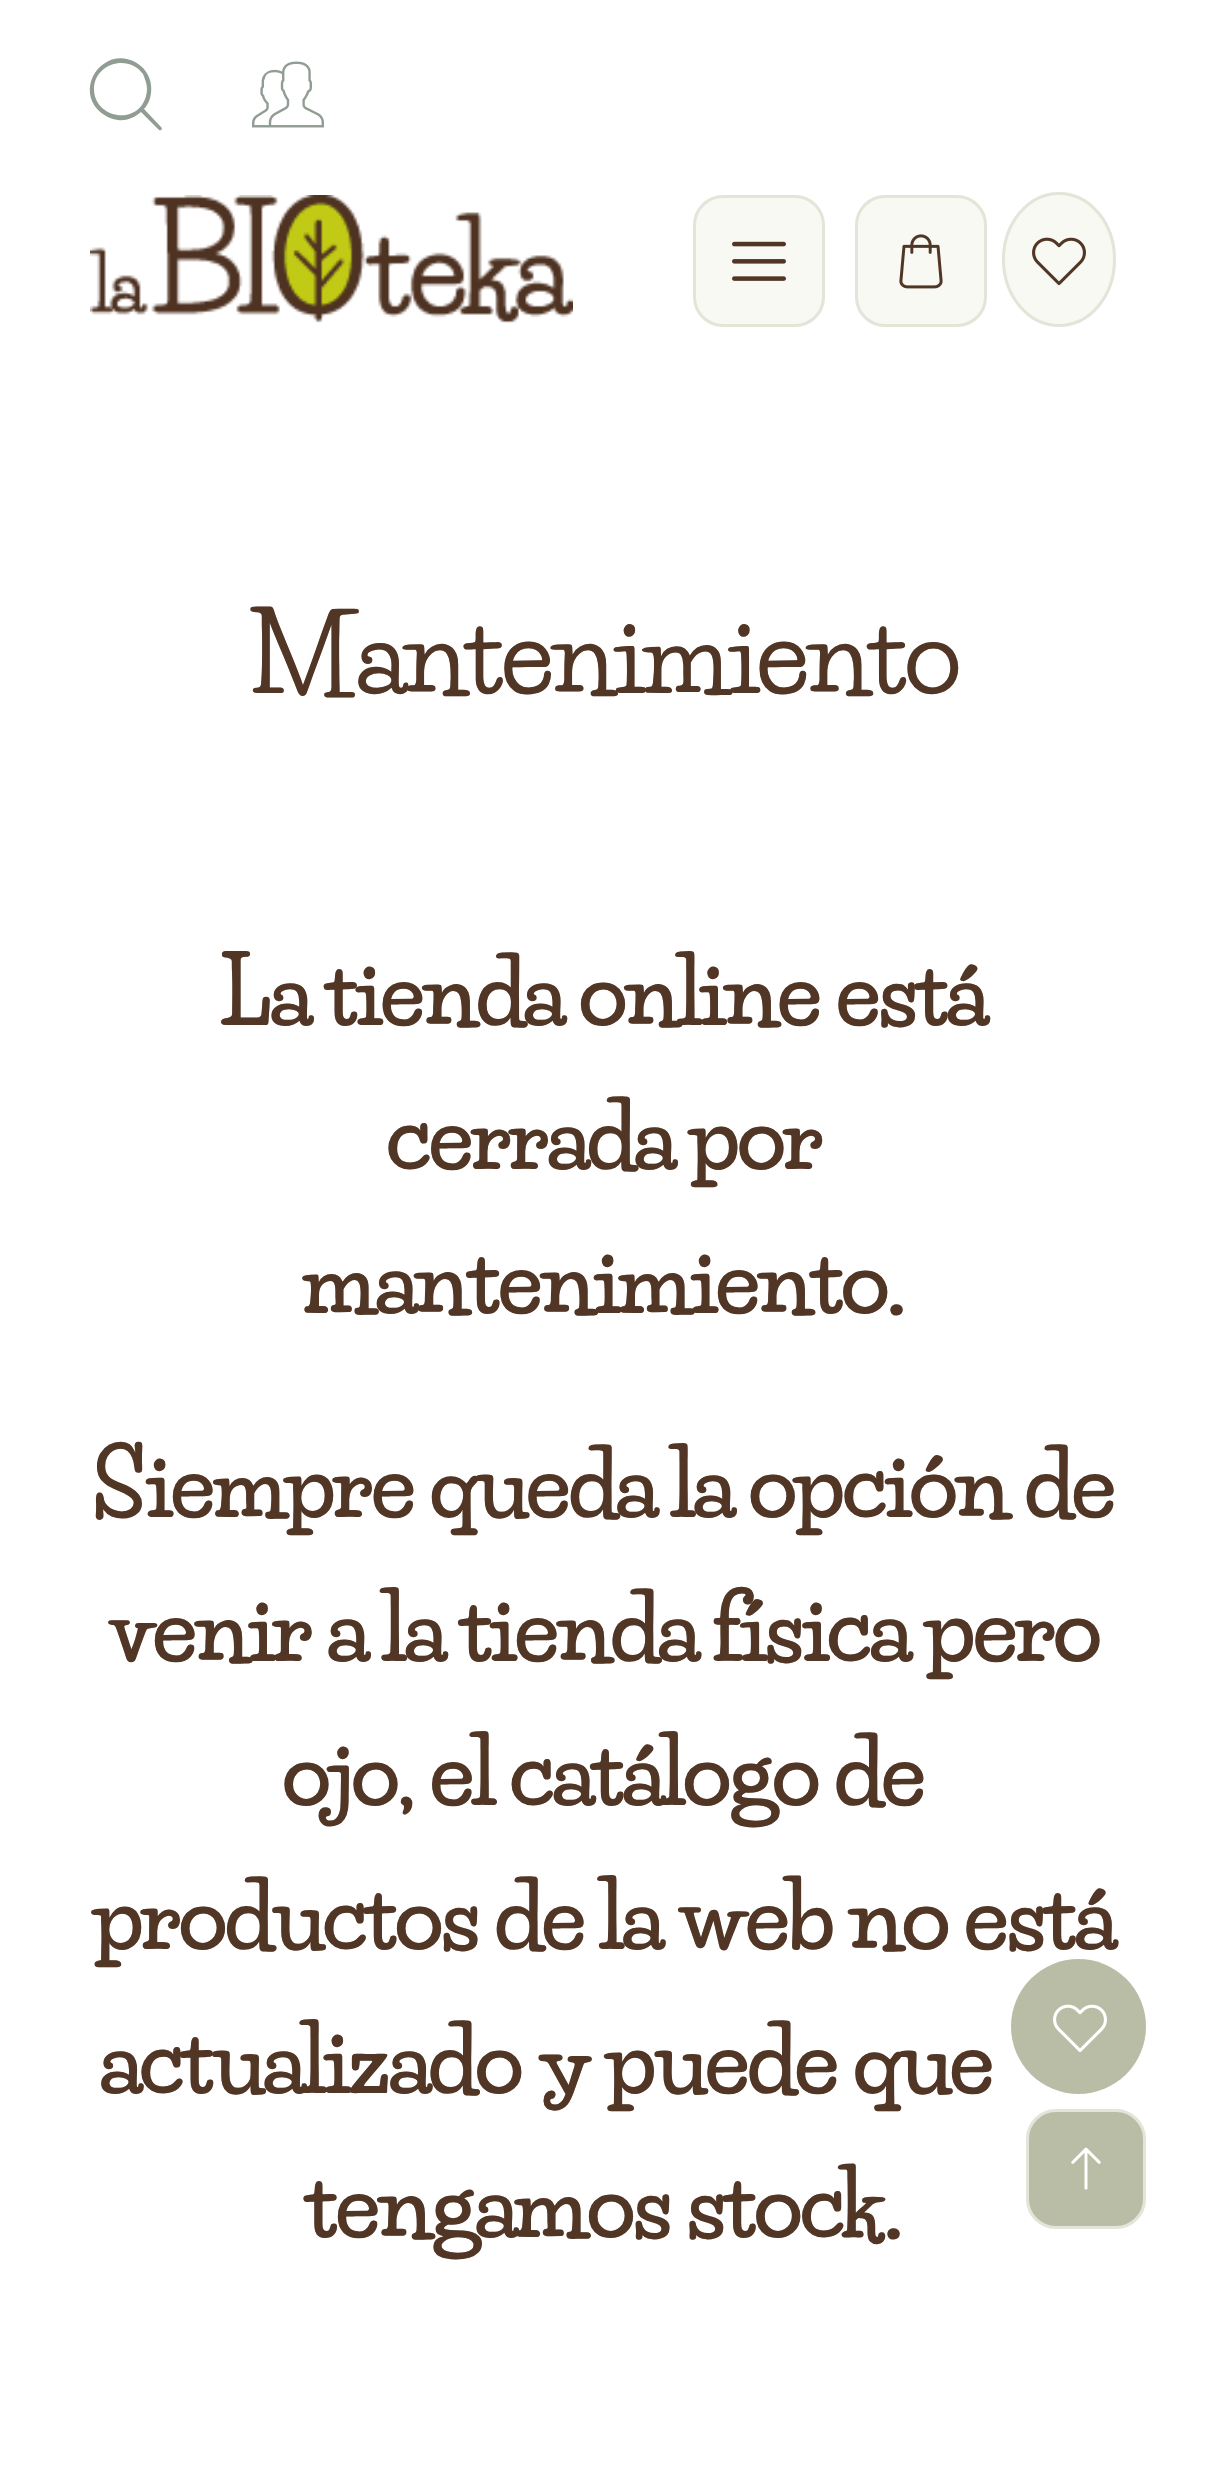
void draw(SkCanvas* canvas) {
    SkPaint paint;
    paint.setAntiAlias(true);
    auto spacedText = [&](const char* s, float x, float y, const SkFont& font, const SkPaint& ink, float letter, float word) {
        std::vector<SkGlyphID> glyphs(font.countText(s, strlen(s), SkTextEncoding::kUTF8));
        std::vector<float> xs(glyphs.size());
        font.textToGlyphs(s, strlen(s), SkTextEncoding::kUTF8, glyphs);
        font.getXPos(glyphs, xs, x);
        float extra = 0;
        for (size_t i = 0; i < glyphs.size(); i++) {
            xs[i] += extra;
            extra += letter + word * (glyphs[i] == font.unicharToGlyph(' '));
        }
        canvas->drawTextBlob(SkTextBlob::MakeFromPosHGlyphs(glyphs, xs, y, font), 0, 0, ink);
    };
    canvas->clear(0xFFFFFFFF);
    paint.setColor(0xFF919C93);
    canvas->drawPath(SkPathBuilder().moveTo(161, 127).lineTo(144, 109).cubicTo(150, 103, 152, 93, 151, 85).cubicTo(150, 75, 144, 67, 135, 62).cubicTo(105, 46, 75, 85, 98, 110).cubicTo(103, 115, 110, 119, 118, 120).cubicTo(126, 121, 134, 118, 141, 112).lineTo(159, 130).cubicTo(161, 131, 163, 129, 161, 127).close().moveTo(94, 89).cubicTo(94, 64, 128, 53, 143, 74).cubicTo(145, 79, 147, 84, 147, 89).cubicTo(147, 95, 145, 100, 142, 105).cubicTo(127, 125, 94, 114, 94, 89).close().detach(), paint);
    canvas->drawImageRect(SkImages::DeferredFromEncodedData(SkData::MakeFromFileName("img1.png")), SkRect::MakeXYWH(252, 61, 72, 67), SkSamplingOptions());
    canvas->drawImageRect(SkImages::DeferredFromEncodedData(SkData::MakeFromFileName("img2.png")), SkRect::MakeXYWH(90, 195, 483, 128), SkSamplingOptions());
    paint.setColor(0xFFF8F9F2);
    canvas->drawRoundRect(SkRect::MakeXYWH(694.5f, 196.5f, 129, 129), 28.5f, 28.5f, paint);
    paint.setStyle(SkPaint::kStroke_Style);
    paint.setStrokeWidth(3);
    paint.setColor(0xFFE4E4D9);
    canvas->drawRoundRect(SkRect::MakeXYWH(694.5f, 196.5f, 129, 129), 28.5f, 28.5f, paint);
    canvas->drawImageRect(SkImages::DeferredFromEncodedData(SkData::MakeFromFileName("img3.png")), SkRect::MakeXYWH(732, 241, 54, 40), SkSamplingOptions());
    paint.setStyle(SkPaint::kFill_Style);
    paint.setColor(0xFFF8F9F2);
    canvas->drawRoundRect(SkRect::MakeXYWH(856.5f, 196.5f, 129, 129), 28.5f, 28.5f, paint);
    paint.setStyle(SkPaint::kStroke_Style);
    paint.setColor(0xFFE4E4D9);
    canvas->drawRoundRect(SkRect::MakeXYWH(856.5f, 196.5f, 129, 129), 28.5f, 28.5f, paint);
    canvas->drawImageRect(SkImages::DeferredFromEncodedData(SkData::MakeFromFileName("img4.png")), SkRect::MakeXYWH(899, 234, 44, 55), SkSamplingOptions());
    paint.setStyle(SkPaint::kFill_Style);
    paint.setColor(0xFFF8F9F2);
    canvas->drawOval(SkRect::MakeXYWH(1002, 192, 114, 135), paint);
    paint.setStyle(SkPaint::kStroke_Style);
    paint.setColor(0xFFE4E4D9);
    canvas->drawPath(SkPathBuilder().moveTo(1059, 193.5f).cubicTo(1089.5f, 193.5f, 1114.5f, 223, 1114.5f, 259.5f).cubicTo(1114.5f, 296, 1089.5f, 325.5f, 1059, 325.5f).cubicTo(1028.5f, 325.5f, 1003.5f, 296, 1003.5f, 259.5f).cubicTo(1003.5f, 223, 1028.5f, 193.5f, 1059, 193.5f).close().detach(), paint);
    canvas->drawImageRect(SkImages::DeferredFromEncodedData(SkData::MakeFromFileName("img5.png")), SkRect::MakeXYWH(1032, 237, 54, 49), SkSamplingOptions());
    SkFont font1(fontMgr->matchFamilyStyle("Life Savers", SkFontStyle::Bold()), 108);
    font1.setSubpixel(true);
    paint.setStyle(SkPaint::kFill_Style);
    paint.setColor(0xFF513626);
    spacedText("Mantenimiento", 247, 693, font1, paint, -3, 0);
    SkFont font2(fontMgr->matchFamilyStyle("Life Savers", SkFontStyle(800, SkFontStyle::kNormal_Width, SkFontStyle::kUpright_Slant)), 90);
    font2.setSubpixel(true);
    spacedText("La tienda online está", 220, 1025, font2, paint, -3, 0);
    spacedText("cerrada por", 386, 1169, font2, paint, -3, 0);
    spacedText("mantenimiento.", 302, 1313, font2, paint, -3, 0);
    spacedText("Siempre queda la opción de", 92, 1517, font2, paint, -3, 0);
    spacedText("venir a la tienda física pero", 108, 1661, font2, paint, -3, 0);
    spacedText("ojo, el catálogo de", 282, 1805, font2, paint, -3, 0);
    spacedText("productos de la web no está", 93, 1949, font2, paint, -3, 0);
    spacedText("actualizado y puede que", 99, 2093, font2, paint, -3, 0);
    spacedText("tengamos stock.", 305, 2237, font2, paint, -3, 0);
    paint.setColor(0xFFBABDA5);
    canvas->drawCircle(1078.5f, 2026.5f, 67.5f, paint);
    canvas->drawImageRect(SkImages::DeferredFromEncodedData(SkData::MakeFromFileName("img6.png")), SkRect::MakeXYWH(1053, 2004, 54, 48), SkSamplingOptions());
    canvas->drawRoundRect(SkRect::MakeXYWH(1027.5f, 2110.5f, 117, 117), 28.5f, 28.5f, paint);
    paint.setStyle(SkPaint::kStroke_Style);
    paint.setColor(0xFFE4E4D9);
    canvas->drawRoundRect(SkRect::MakeXYWH(1027.5f, 2110.5f, 117, 117), 28.5f, 28.5f, paint);
    canvas->drawImageRect(SkImages::DeferredFromEncodedData(SkData::MakeFromFileName("img7.png")), SkRect::MakeXYWH(1071, 2147, 30, 43), SkSamplingOptions());
}
